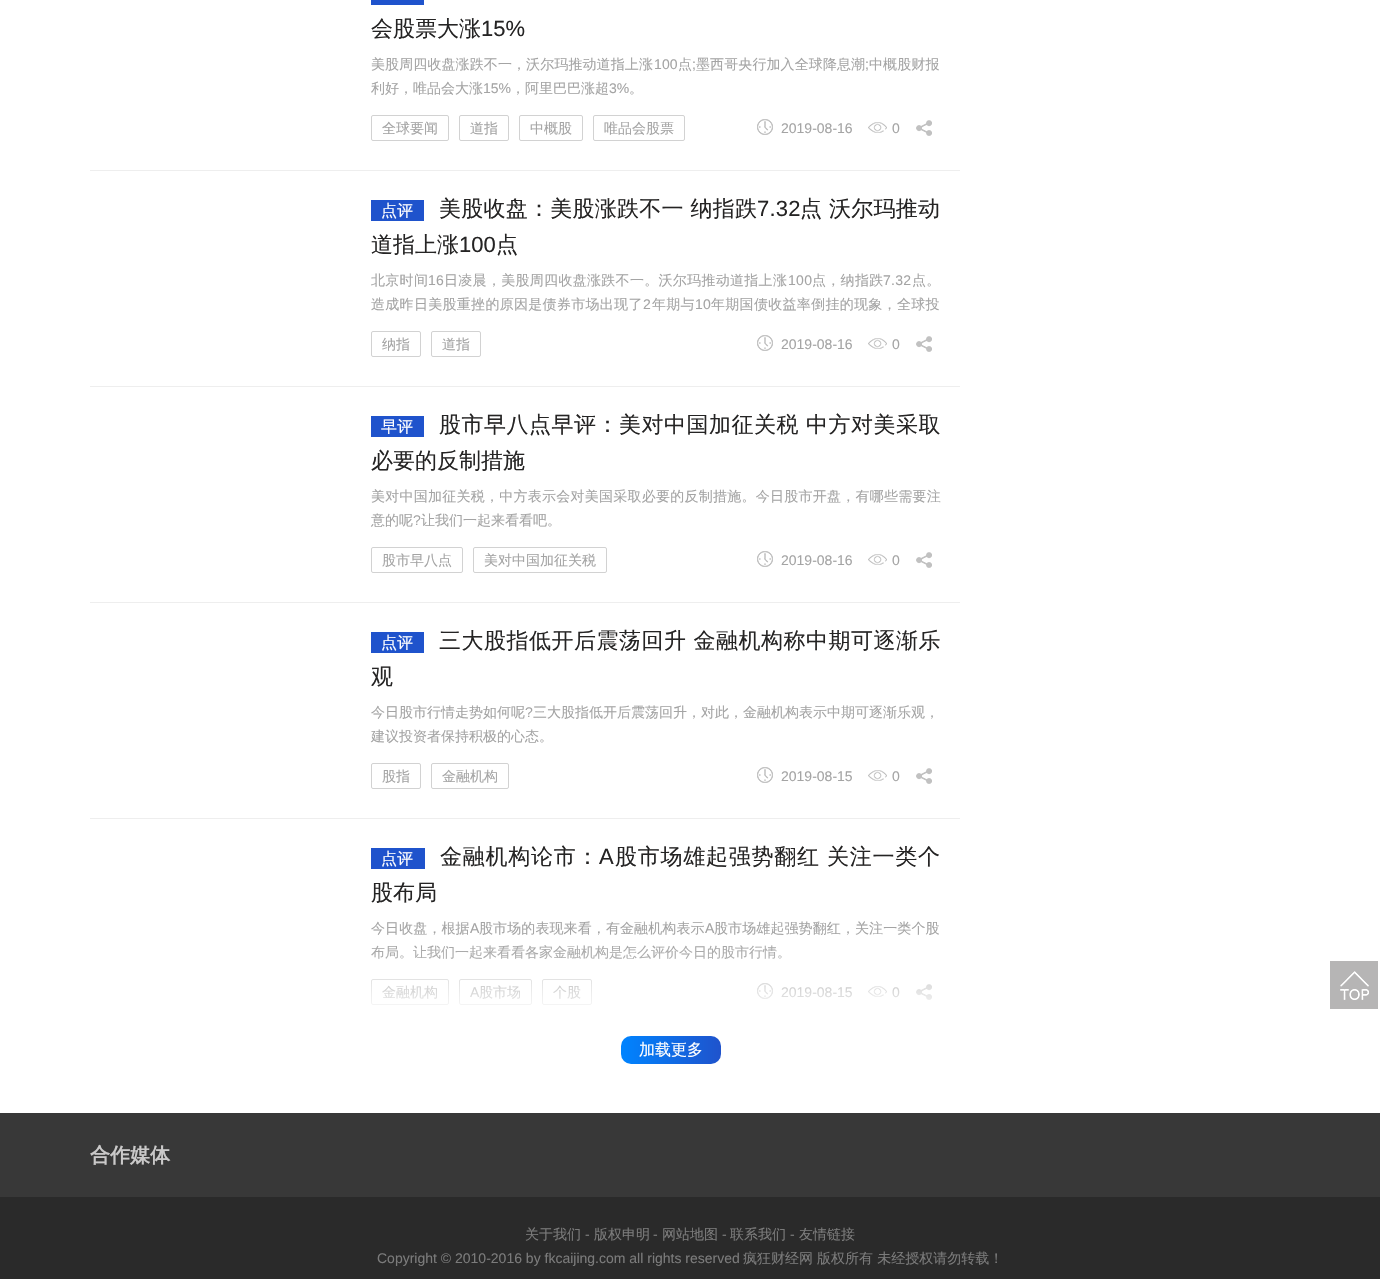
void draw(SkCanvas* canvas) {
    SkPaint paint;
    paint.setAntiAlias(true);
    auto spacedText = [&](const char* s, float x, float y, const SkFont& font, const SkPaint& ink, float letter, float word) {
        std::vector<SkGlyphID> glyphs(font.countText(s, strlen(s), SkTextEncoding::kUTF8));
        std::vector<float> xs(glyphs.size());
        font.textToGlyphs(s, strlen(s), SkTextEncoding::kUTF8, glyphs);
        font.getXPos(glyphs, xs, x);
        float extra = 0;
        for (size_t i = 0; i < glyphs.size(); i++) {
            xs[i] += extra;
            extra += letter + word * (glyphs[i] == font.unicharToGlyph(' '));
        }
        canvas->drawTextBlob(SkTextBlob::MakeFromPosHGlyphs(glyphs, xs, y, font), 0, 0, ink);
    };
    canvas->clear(0xFFFFFFFF);
    paint.setColor(0xFFEEEEEE);
    canvas->drawRect(SkRect::MakeXYWH(90, 170, 870, 1), paint);
    paint.setColor(0xFF1F53CC);
    canvas->drawRect(SkRect::MakeXYWH(371, 0, 53, 5), paint);
    SkFont font1(fontMgr->matchFamilyStyle("WenQuanYi Zen Hei", SkFontStyle(500, SkFontStyle::kNormal_Width, SkFontStyle::kUpright_Slant)), 22);
    font1.setSubpixel(true);
    paint.setColor(0xFF252424);
    canvas->drawString("会股票大涨", 371, 36, font1, paint);
    SkFont font2(fontMgr->matchFamilyStyle("Liberation Sans", SkFontStyle::Normal()), 22);
    font2.setSubpixel(true);
    canvas->drawString("15%", 481, 36, font2, paint);
    SkFont font3(fontMgr->matchFamilyStyle("WenQuanYi Zen Hei", SkFontStyle(500, SkFontStyle::kNormal_Width, SkFontStyle::kUpright_Slant)), 14);
    font3.setSubpixel(true);
    paint.setColor(0xFFA4A4A4);
    spacedText("美股周四收盘涨跌不一，沃尔玛推动道指上涨", 371, 69, font3, paint, 0.1f, 0);
    SkFont font4(fontMgr->matchFamilyStyle("Liberation Sans", SkFontStyle::Normal()), 14);
    font4.setSubpixel(true);
    spacedText("100", 654, 69, font4, paint, 0.1f, 0);
    spacedText("点", 678, 69, font3, paint, 0.1f, 0);
    spacedText(";", 692, 69, font4, paint, 0.1f, 0);
    spacedText("墨西哥央行加入全球降息潮", 696, 69, font3, paint, 0.1f, 0);
    spacedText(";", 865, 69, font4, paint, 0.1f, 0);
    spacedText("中概股财报", 869, 69, font3, paint, 0.1f, 0);
    canvas->drawString("利好，唯品会大涨", 371, 93, font3, paint);
    canvas->drawString("15%", 483, 93, font4, paint);
    canvas->drawString("，阿里巴巴涨超", 511, 93, font3, paint);
    canvas->drawString("3%", 609, 93, font4, paint);
    canvas->drawString("。", 629, 93, font3, paint);
    paint.setStyle(SkPaint::kStroke_Style);
    paint.setStrokeWidth(1);
    paint.setColor(0xFFD2D2D2);
    canvas->drawRoundRect(SkRect::MakeXYWH(371.5f, 115.5f, 77, 25), 1.5f, 1.5f, paint);
    paint.setStyle(SkPaint::kFill_Style);
    paint.setColor(0xFFA4A4A4);
    canvas->drawString("全球要闻", 382, 133, font3, paint);
    paint.setStyle(SkPaint::kStroke_Style);
    paint.setColor(0xFFD2D2D2);
    canvas->drawRoundRect(SkRect::MakeXYWH(459.5f, 115.5f, 49, 25), 1.5f, 1.5f, paint);
    paint.setStyle(SkPaint::kFill_Style);
    paint.setColor(0xFFA4A4A4);
    canvas->drawString("道指", 470, 133, font3, paint);
    paint.setStyle(SkPaint::kStroke_Style);
    paint.setColor(0xFFD2D2D2);
    canvas->drawRoundRect(SkRect::MakeXYWH(519.5f, 115.5f, 63, 25), 1.5f, 1.5f, paint);
    paint.setStyle(SkPaint::kFill_Style);
    paint.setColor(0xFFA4A4A4);
    canvas->drawString("中概股", 530, 133, font3, paint);
    paint.setStyle(SkPaint::kStroke_Style);
    paint.setColor(0xFFD2D2D2);
    canvas->drawRoundRect(SkRect::MakeXYWH(593.5f, 115.5f, 91, 25), 1.5f, 1.5f, paint);
    paint.setStyle(SkPaint::kFill_Style);
    paint.setColor(0xFFA4A4A4);
    canvas->drawString("唯品会股票", 604, 133, font3, paint);
    canvas->drawImageRect(SkImages::DeferredFromEncodedData(SkData::MakeFromFileName("img1.png")), SkRect::MakeXYWH(757, 119, 16, 16), SkSamplingOptions());
    canvas->drawString("2019-08-16", 781, 133, font4, paint);
    canvas->drawImageRect(SkImages::DeferredFromEncodedData(SkData::MakeFromFileName("img2.png")), SkRect::MakeXYWH(868, 122, 19, 11), SkSamplingOptions());
    canvas->drawString("0", 892, 133, font4, paint);
    canvas->drawImageRect(SkImages::DeferredFromEncodedData(SkData::MakeFromFileName("img3.png")), SkRect::MakeXYWH(916, 120, 16, 16), SkSamplingOptions());
    paint.setColor(0xFFEEEEEE);
    canvas->drawRect(SkRect::MakeXYWH(90, 386, 870, 1), paint);
    paint.setColor(0xFF1F53CC);
    canvas->drawRect(SkRect::MakeXYWH(371, 200, 53, 21), paint);
    SkFont font5(fontMgr->matchFamilyStyle("WenQuanYi Zen Hei", SkFontStyle(500, SkFontStyle::kNormal_Width, SkFontStyle::kUpright_Slant)), 16);
    font5.setSubpixel(true);
    paint.setColor(0xFFFFFFFF);
    canvas->drawString("点评", 381, 216, font5, paint);
    paint.setColor(0xFF252424);
    spacedText("美股收盘：美股涨跌不一 纳指跌", 439, 216, font1, paint, 0.25f, 0);
    spacedText("7.32", 757, 216, font2, paint, 0.25f, 0);
    spacedText("点 沃尔玛推动", 800, 216, font1, paint, 0.25f, 0);
    canvas->drawString("道指上涨", 371, 252, font1, paint);
    canvas->drawString("100", 459, 252, font2, paint);
    canvas->drawString("点", 496, 252, font1, paint);
    paint.setColor(0xFFA4A4A4);
    spacedText("北京时间", 371, 285, font3, paint, 0.3f, 0);
    spacedText("16", 428, 285, font4, paint, 0.3f, 0);
    spacedText("日凌晨，美股周四收盘涨跌不一。沃尔玛推动道指上涨", 444, 285, font3, paint, 0.3f, 0);
    spacedText("100", 788, 285, font4, paint, 0.3f, 0);
    spacedText("点，纳指跌", 812, 285, font3, paint, 0.3f, 0);
    spacedText("7.32", 883, 285, font4, paint, 0.3f, 0);
    spacedText("点。", 912, 285, font3, paint, 0.3f, 0);
    spacedText("造成昨日美股重挫的原因是债券市场出现了", 371, 309, font3, paint, 0.3f, 0);
    spacedText("2", 643, 309, font4, paint, 0.3f, 0);
    spacedText("年期与", 652, 309, font3, paint, 0.3f, 0);
    spacedText("10", 695, 309, font4, paint, 0.3f, 0);
    spacedText("年期国债收益率倒挂的现象，全球投", 711, 309, font3, paint, 0.3f, 0);
    paint.setStyle(SkPaint::kStroke_Style);
    paint.setColor(0xFFD2D2D2);
    canvas->drawRoundRect(SkRect::MakeXYWH(371.5f, 331.5f, 49, 25), 1.5f, 1.5f, paint);
    paint.setStyle(SkPaint::kFill_Style);
    paint.setColor(0xFFA4A4A4);
    canvas->drawString("纳指", 382, 349, font3, paint);
    paint.setStyle(SkPaint::kStroke_Style);
    paint.setColor(0xFFD2D2D2);
    canvas->drawRoundRect(SkRect::MakeXYWH(431.5f, 331.5f, 49, 25), 1.5f, 1.5f, paint);
    paint.setStyle(SkPaint::kFill_Style);
    paint.setColor(0xFFA4A4A4);
    canvas->drawString("道指", 442, 349, font3, paint);
    canvas->drawImageRect(SkImages::DeferredFromEncodedData(SkData::MakeFromFileName("img1.png")), SkRect::MakeXYWH(757, 335, 16, 16), SkSamplingOptions());
    canvas->drawString("2019-08-16", 781, 349, font4, paint);
    canvas->drawImageRect(SkImages::DeferredFromEncodedData(SkData::MakeFromFileName("img2.png")), SkRect::MakeXYWH(868, 338, 19, 11), SkSamplingOptions());
    canvas->drawString("0", 892, 349, font4, paint);
    canvas->drawImageRect(SkImages::DeferredFromEncodedData(SkData::MakeFromFileName("img3.png")), SkRect::MakeXYWH(916, 336, 16, 16), SkSamplingOptions());
    paint.setColor(0xFFEEEEEE);
    canvas->drawRect(SkRect::MakeXYWH(90, 602, 870, 1), paint);
    paint.setColor(0xFF1F53CC);
    canvas->drawRect(SkRect::MakeXYWH(371, 416, 53, 21), paint);
    paint.setColor(0xFFFFFFFF);
    canvas->drawString("早评", 381, 432, font5, paint);
    paint.setColor(0xFF252424);
    spacedText("股市早八点早评：美对中国加征关税 中方对美采取", 439, 432, font1, paint, 0.5f, 0);
    canvas->drawString("必要的反制措施", 371, 468, font1, paint);
    paint.setColor(0xFFA4A4A4);
    spacedText("美对中国加征关税，中方表示会对美国采取必要的反制措施。今日股市开盘，有哪些需要注", 371, 501, font3, paint, 0.25f, 0);
    canvas->drawString("意的呢", 371, 525, font3, paint);
    canvas->drawString("?", 413, 525, font4, paint);
    canvas->drawString("让我们一起来看看吧。", 421, 525, font3, paint);
    paint.setStyle(SkPaint::kStroke_Style);
    paint.setColor(0xFFD2D2D2);
    canvas->drawRoundRect(SkRect::MakeXYWH(371.5f, 547.5f, 91, 25), 1.5f, 1.5f, paint);
    paint.setStyle(SkPaint::kFill_Style);
    paint.setColor(0xFFA4A4A4);
    canvas->drawString("股市早八点", 382, 565, font3, paint);
    paint.setStyle(SkPaint::kStroke_Style);
    paint.setColor(0xFFD2D2D2);
    canvas->drawRoundRect(SkRect::MakeXYWH(473.5f, 547.5f, 133, 25), 1.5f, 1.5f, paint);
    paint.setStyle(SkPaint::kFill_Style);
    paint.setColor(0xFFA4A4A4);
    canvas->drawString("美对中国加征关税", 484, 565, font3, paint);
    canvas->drawImageRect(SkImages::DeferredFromEncodedData(SkData::MakeFromFileName("img1.png")), SkRect::MakeXYWH(757, 551, 16, 16), SkSamplingOptions());
    canvas->drawString("2019-08-16", 781, 565, font4, paint);
    canvas->drawImageRect(SkImages::DeferredFromEncodedData(SkData::MakeFromFileName("img2.png")), SkRect::MakeXYWH(868, 554, 19, 11), SkSamplingOptions());
    canvas->drawString("0", 892, 565, font4, paint);
    canvas->drawImageRect(SkImages::DeferredFromEncodedData(SkData::MakeFromFileName("img3.png")), SkRect::MakeXYWH(916, 552, 16, 16), SkSamplingOptions());
    paint.setColor(0xFFEEEEEE);
    canvas->drawRect(SkRect::MakeXYWH(90, 818, 870, 1), paint);
    paint.setColor(0xFF1F53CC);
    canvas->drawRect(SkRect::MakeXYWH(371, 632, 53, 21), paint);
    paint.setColor(0xFFFFFFFF);
    canvas->drawString("点评", 381, 648, font5, paint);
    paint.setColor(0xFF252424);
    spacedText("三大股指低开后震荡回升 金融机构称中期可逐渐乐", 439, 648, font1, paint, 0.5f, 0);
    canvas->drawString("观", 371, 684, font1, paint);
    paint.setColor(0xFFA4A4A4);
    canvas->drawString("今日股市行情走势如何呢", 371, 717, font3, paint);
    canvas->drawString("?", 525, 717, font4, paint);
    canvas->drawString("三大股指低开后震荡回升，对此，金融机构表示中期可逐渐乐观，", 533, 717, font3, paint);
    canvas->drawString("建议投资者保持积极的心态。", 371, 741, font3, paint);
    paint.setStyle(SkPaint::kStroke_Style);
    paint.setColor(0xFFD2D2D2);
    canvas->drawRoundRect(SkRect::MakeXYWH(371.5f, 763.5f, 49, 25), 1.5f, 1.5f, paint);
    paint.setStyle(SkPaint::kFill_Style);
    paint.setColor(0xFFA4A4A4);
    canvas->drawString("股指", 382, 781, font3, paint);
    paint.setStyle(SkPaint::kStroke_Style);
    paint.setColor(0xFFD2D2D2);
    canvas->drawRoundRect(SkRect::MakeXYWH(431.5f, 763.5f, 77, 25), 1.5f, 1.5f, paint);
    paint.setStyle(SkPaint::kFill_Style);
    paint.setColor(0xFFA4A4A4);
    canvas->drawString("金融机构", 442, 781, font3, paint);
    canvas->drawImageRect(SkImages::DeferredFromEncodedData(SkData::MakeFromFileName("img1.png")), SkRect::MakeXYWH(757, 767, 16, 16), SkSamplingOptions());
    canvas->drawString("2019-08-15", 781, 781, font4, paint);
    canvas->drawImageRect(SkImages::DeferredFromEncodedData(SkData::MakeFromFileName("img2.png")), SkRect::MakeXYWH(868, 770, 19, 11), SkSamplingOptions());
    canvas->drawString("0", 892, 781, font4, paint);
    canvas->drawImageRect(SkImages::DeferredFromEncodedData(SkData::MakeFromFileName("img3.png")), SkRect::MakeXYWH(916, 768, 16, 16), SkSamplingOptions());
    paint.setColor(0xFF1F53CC);
    canvas->drawRect(SkRect::MakeXYWH(371, 848, 54, 21), paint);
    paint.setColor(0xFFFFFFFF);
    canvas->drawString("点评", 381, 864, font5, paint);
    paint.setColor(0xFF252424);
    spacedText("金融机构论市：", 440, 864, font1, paint, 0.75f, 0);
    spacedText("A", 599, 864, font2, paint, 0.75f, 0);
    spacedText("股市场雄起强势翻红 关注一类个", 615, 864, font1, paint, 0.75f, 0);
    canvas->drawString("股布局", 371, 900, font1, paint);
    paint.setColor(0xFFA4A4A4);
    spacedText("今日收盘，根据", 371, 933, font3, paint, 0.1f, 0);
    spacedText("A", 470, 933, font4, paint, 0.1f, 0);
    spacedText("股市场的表现来看，有金融机构表示", 479, 933, font3, paint, 0.1f, 0);
    spacedText("A", 705, 933, font4, paint, 0.1f, 0);
    spacedText("股市场雄起强势翻红，关注一类个股", 714, 933, font3, paint, 0.1f, 0);
    canvas->drawString("布局。让我们一起来看看各家金融机构是怎么评价今日的股市行情。", 371, 957, font3, paint);
    paint.setStyle(SkPaint::kStroke_Style);
    paint.setColor(0xFFD2D2D2);
    canvas->drawRoundRect(SkRect::MakeXYWH(371.5f, 979.5f, 77, 25), 1.5f, 1.5f, paint);
    paint.setStyle(SkPaint::kFill_Style);
    paint.setColor(0xFFA4A4A4);
    canvas->drawString("金融机构", 382, 997, font3, paint);
    paint.setStyle(SkPaint::kStroke_Style);
    paint.setColor(0xFFD2D2D2);
    canvas->drawRoundRect(SkRect::MakeXYWH(459.5f, 979.5f, 72, 25), 1.5f, 1.5f, paint);
    paint.setStyle(SkPaint::kFill_Style);
    paint.setColor(0xFFA4A4A4);
    canvas->drawString("A", 470, 997, font4, paint);
    canvas->drawString("股市场", 479, 997, font3, paint);
    paint.setStyle(SkPaint::kStroke_Style);
    paint.setColor(0xFFD2D2D2);
    canvas->drawRoundRect(SkRect::MakeXYWH(542.5f, 979.5f, 49, 25), 1.5f, 1.5f, paint);
    paint.setStyle(SkPaint::kFill_Style);
    paint.setColor(0xFFA4A4A4);
    canvas->drawString("个股", 553, 997, font3, paint);
    canvas->drawImageRect(SkImages::DeferredFromEncodedData(SkData::MakeFromFileName("img1.png")), SkRect::MakeXYWH(757, 983, 16, 16), SkSamplingOptions());
    canvas->drawString("2019-08-15", 781, 997, font4, paint);
    canvas->drawImageRect(SkImages::DeferredFromEncodedData(SkData::MakeFromFileName("img2.png")), SkRect::MakeXYWH(868, 986, 19, 11), SkSamplingOptions());
    canvas->drawString("0", 892, 997, font4, paint);
    canvas->drawImageRect(SkImages::DeferredFromEncodedData(SkData::MakeFromFileName("img3.png")), SkRect::MakeXYWH(916, 984, 16, 16), SkSamplingOptions());
    canvas->drawImageRect(SkImages::DeferredFromEncodedData(SkData::MakeFromFileName("img4.png")), SkRect::MakeXYWH(90, 946, 870, 89), SkSamplingOptions());
    {
        const SkColor colors[] = {0xFF0084FF, 0xFF1F53CC};
        const float stops[] = {0, 1};
        const SkPoint ends[] = {{621, 1050}, {721, 1050}};
        paint.setShader(SkGradientShader::MakeLinear(ends, colors, stops, 2, SkTileMode::kClamp));
        paint.setAlpha(255);
    }
    canvas->drawRoundRect(SkRect::MakeXYWH(621, 1036, 100, 28), 10, 10, paint);
    paint.setShader(nullptr);
    paint.setColor(0xFFFFFFFF);
    canvas->drawString("加载更多", 639, 1055, font5, paint);
    canvas->drawImageRect(SkImages::DeferredFromEncodedData(SkData::MakeFromFileName("img5.png")), SkRect::MakeXYWH(1330, 961, 48, 48), SkSamplingOptions());
    paint.setColor(0xFF383838);
    canvas->drawRect(SkRect::MakeXYWH(0, 1113, 1380, 84), paint);
    SkFont font6(fontMgr->matchFamilyStyle("WenQuanYi Zen Hei", SkFontStyle::Bold()), 20);
    font6.setSubpixel(true);
    paint.setColor(0xFFCAC9C9);
    canvas->drawString("合作媒体", 90, 1162, font6, paint);
    paint.setColor(0xFF2A2A2A);
    canvas->drawRect(SkRect::MakeXYWH(0, 1197, 1380, 82), paint);
    paint.setColor(0xFF7B7B7B);
    canvas->drawString("关于我们", 525, 1239, font3, paint);
    canvas->drawString("-", 585, 1239, font4, paint);
    canvas->drawString("版权申明", 594, 1239, font3, paint);
    canvas->drawString("-", 653, 1239, font4, paint);
    canvas->drawString("网站地图", 662, 1239, font3, paint);
    canvas->drawString("-", 722, 1239, font4, paint);
    canvas->drawString("联系我们", 730, 1239, font3, paint);
    canvas->drawString("-", 790, 1239, font4, paint);
    canvas->drawString("友情链接", 799, 1239, font3, paint);
    canvas->drawString("Copyright © 2010-2016 by fkcaijing.com all rights reserved", 377, 1263, font4, paint);
    canvas->drawString("疯狂财经网", 743, 1263, font3, paint);
    canvas->drawString("版权所有 未经授权请勿转载！", 817, 1263, font3, paint);
}
